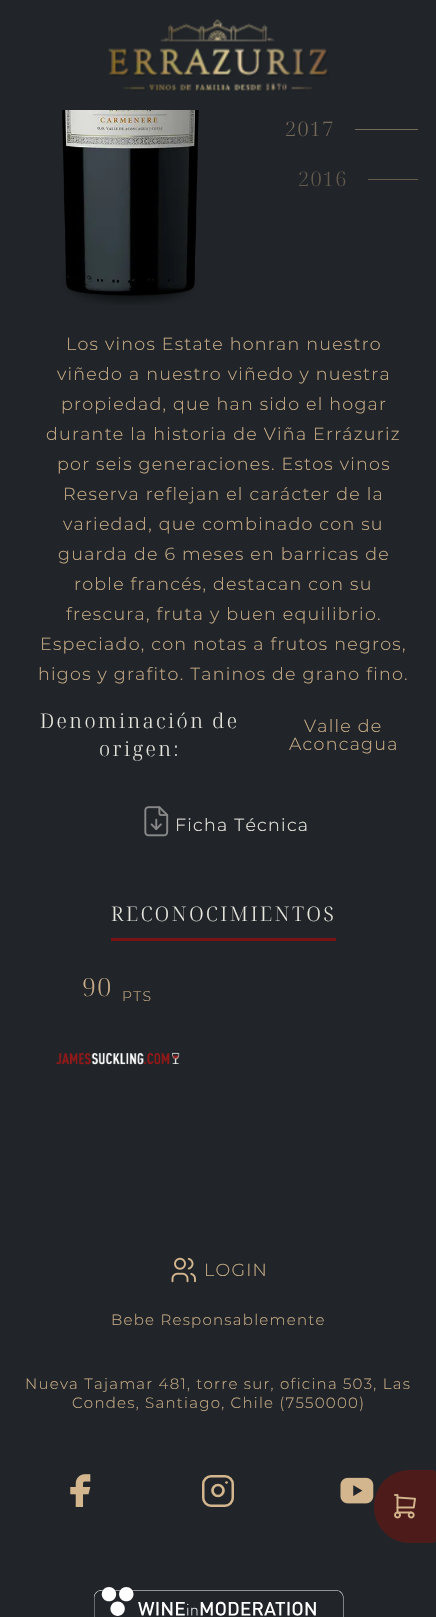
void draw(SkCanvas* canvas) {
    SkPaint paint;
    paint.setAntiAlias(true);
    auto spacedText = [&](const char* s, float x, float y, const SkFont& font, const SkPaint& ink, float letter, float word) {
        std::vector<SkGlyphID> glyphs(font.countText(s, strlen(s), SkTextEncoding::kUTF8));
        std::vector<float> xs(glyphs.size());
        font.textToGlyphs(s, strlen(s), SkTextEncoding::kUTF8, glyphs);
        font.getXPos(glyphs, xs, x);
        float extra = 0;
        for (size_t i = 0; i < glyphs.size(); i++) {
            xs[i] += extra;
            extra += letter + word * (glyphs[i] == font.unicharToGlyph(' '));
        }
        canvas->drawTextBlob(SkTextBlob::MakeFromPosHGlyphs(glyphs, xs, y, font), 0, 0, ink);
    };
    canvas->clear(0xFF212529);
    canvas->drawImageRect(SkImages::DeferredFromEncodedData(SkData::MakeFromFileName("img1.png")), SkRect::MakeXYWH(108, 19, 221, 73), SkSamplingOptions());
    canvas->drawImageRect(SkImages::DeferredFromEncodedData(SkData::MakeFromFileName("img2.png")), SkRect::MakeXYWH(61, 110, 138, 195), SkSamplingOptions());
    SkFont font1(fontMgr->matchFamilyStyle("Noto Serif Display", SkFontStyle(300, SkFontStyle::kNormal_Width, SkFontStyle::kUpright_Slant)), 20);
    font1.setSubpixel(true);
    paint.setColor(0xFF756959);
    spacedText("2017", 285, 136, font1, paint, 1.25f, 0);
    canvas->drawRect(SkRect::MakeXYWH(355, 129, 63, 1), paint);
    paint.setColor(0xFF645B4E);
    spacedText("2016", 298, 186, font1, paint, 1.25f, 0);
    canvas->drawRect(SkRect::MakeXYWH(368, 179, 50, 1), paint);
    SkFont font2(fontMgr->matchFamilyStyle("Montserrat", SkFontStyle(300, SkFontStyle::kNormal_Width, SkFontStyle::kUpright_Slant)), 17.5f);
    font2.setSubpixel(true);
    paint.setColor(0xFFC8AC87);
    spacedText("Los vinos Estate honran nuestro", 66, 350, font2, paint, 1.25f, 0);
    spacedText("viñedo a nuestro viñedo y nuestra", 57, 380, font2, paint, 1.25f, 0);
    spacedText("propiedad, que han sido el hogar", 61, 410, font2, paint, 1.25f, 0);
    spacedText("durante la historia de Viña Errázuriz", 46, 440, font2, paint, 1.25f, 0);
    spacedText("por seis generaciones. Estos vinos", 57, 470, font2, paint, 1.25f, 0);
    spacedText("Reserva reflejan el carácter de la", 63, 500, font2, paint, 1.25f, 0);
    spacedText("variedad, que combinado con su", 63, 530, font2, paint, 1.25f, 0);
    spacedText("guarda de 6 meses en barricas de", 58, 560, font2, paint, 1.25f, 0);
    spacedText("roble francés, destacan con su", 74, 590, font2, paint, 1.25f, 0);
    spacedText("frescura, fruta y buen equilibrio.", 66, 620, font2, paint, 1.25f, 0);
    spacedText("Especiado, con notas a frutos negros,", 40, 650, font2, paint, 1.25f, 0);
    spacedText("higos y grafito. Taninos de grano fino.", 38, 680, font2, paint, 1.25f, 0);
    paint.setColor(0xFFE9E8E0);
    spacedText("Denominación de", 40, 728, font1, paint, 2.5f, 0);
    spacedText("origen:", 99, 756, font1, paint, 2.5f, 0);
    paint.setColor(0xFFC8AC87);
    spacedText("Valle de", 304, 732, font2, paint, 1.25f, 0);
    spacedText("Aconcagua", 289, 750, font2, paint, 1.25f, 0);
    canvas->drawImageRect(SkImages::DeferredFromEncodedData(SkData::MakeFromFileName("img3.png")), SkRect::MakeXYWH(144, 806, 25, 31), SkSamplingOptions());
    paint.setColor(0xFFE9E8E0);
    spacedText("Ficha Técnica", 175, 831, font2, paint, 1.25f, 0);
    spacedText("RECONOCIMIENTOS", 111, 921, font1, paint, 2.5f, 0);
    paint.setColor(0xFF791313);
    canvas->drawRect(SkRect::MakeXYWH(111, 938, 225, 3), paint);
    SkFont font3(fontMgr->matchFamilyStyle("Noto Serif Display", SkFontStyle(300, SkFontStyle::kNormal_Width, SkFontStyle::kUpright_Slant)), 25);
    font3.setSubpixel(true);
    paint.setColor(0xFFC8AC87);
    spacedText("90", 82, 996, font3, paint, 1.25f, 0);
    SkFont font4(fontMgr->matchFamilyStyle("Montserrat", SkFontStyle(300, SkFontStyle::kNormal_Width, SkFontStyle::kUpright_Slant)), 14);
    font4.setSubpixel(true);
    spacedText("PTS", 122, 1001, font4, paint, 1.25f, 0);
    canvas->drawImageRect(SkImages::DeferredFromEncodedData(SkData::MakeFromFileName("img4.png")), SkRect::MakeXYWH(56, 1052, 124, 13), SkSamplingOptions());
    canvas->drawImageRect(SkImages::DeferredFromEncodedData(SkData::MakeFromFileName("img5.png")), SkRect::MakeXYWH(171, 1257, 25, 26), SkSamplingOptions());
    spacedText("LOGIN", 204, 1276, font2, paint, 1.25f, 0);
    SkFont font5(fontMgr->matchFamilyStyle("Montserrat", SkFontStyle(300, SkFontStyle::kNormal_Width, SkFontStyle::kUpright_Slant)), 15);
    font5.setSubpixel(true);
    spacedText("Bebe Responsablemente", 111, 1325, font5, paint, 1.25f, 0);
    spacedText("Nueva Tajamar 481, torre sur, oficina 503, Las", 25, 1389, font5, paint, 1.25f, 0);
    spacedText("Condes, Santiago, Chile (7550000)", 72, 1408, font5, paint, 1.25f, 0);
    canvas->drawImageRect(SkImages::DeferredFromEncodedData(SkData::MakeFromFileName("img6.png")), SkRect::MakeXYWH(70, 1474, 21, 33), SkSamplingOptions());
    paint.setStyle(SkPaint::kStroke_Style);
    paint.setStrokeWidth(2.5f);
    paint.setColor(0xFFD4B68E);
    canvas->drawRoundRect(SkRect::MakeXYWH(203.25f, 1476.25f, 29.5f, 29.5f), 7.75f, 7.75f, paint);
    paint.setStrokeWidth(2.7f);
    canvas->drawCircle(218, 1490.5f, 5.5f, paint);
    paint.setStrokeCap(SkPaint::kRound_Cap);
    paint.setStrokeJoin(SkPaint::kRound_Join);
    canvas->drawPath(SkPathBuilder().moveTo(226.5f, 1482.5f).lineTo(226.5f, 1482.5f).detach(), paint);
    canvas->drawImageRect(SkImages::DeferredFromEncodedData(SkData::MakeFromFileName("img7.png")), SkRect::MakeXYWH(340, 1477, 34, 27), SkSamplingOptions());
    canvas->drawImageRect(SkImages::DeferredFromEncodedData(SkData::MakeFromFileName("img8.png")), SkRect::MakeXYWH(94, 1587, 250, 30), SkSamplingOptions());
    paint.setStyle(SkPaint::kFill_Style);
    paint.setColor(0xFF4E1B1B);
    canvas->drawPath(SkPathBuilder().moveTo(410, 1470).lineTo(433, 1470).cubicTo(434.5f, 1470, 436, 1471.5f, 436, 1473).lineTo(436, 1540).cubicTo(436, 1541.5f, 434.5f, 1543, 433, 1543).lineTo(410, 1543).cubicTo(390, 1543, 374, 1527, 374, 1507).lineTo(374, 1506).cubicTo(374, 1486, 390, 1470, 410, 1470).close().detach(), paint);
    canvas->drawImageRect(SkImages::DeferredFromEncodedData(SkData::MakeFromFileName("img9.png")), SkRect::MakeXYWH(394, 1494, 22, 25), SkSamplingOptions());
}
